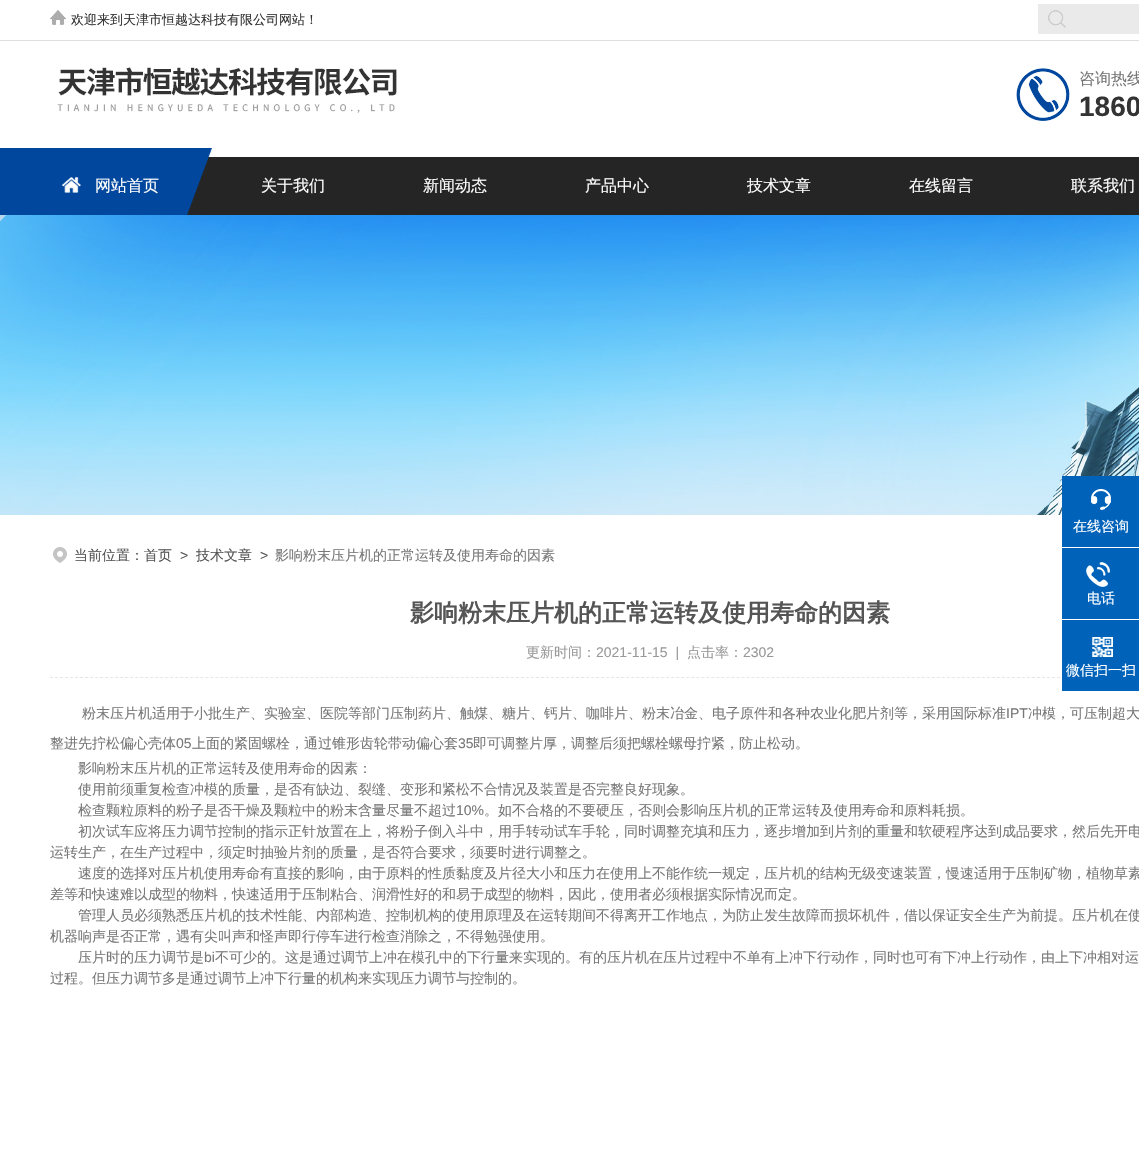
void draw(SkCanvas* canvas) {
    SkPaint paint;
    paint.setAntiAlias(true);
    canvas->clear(0xFFFFFFFF);
    paint.setColor(0xFFDEDEDE);
    canvas->drawRect(SkRect::MakeXYWH(0, 40, 1139, 1), paint);
    canvas->drawImageRect(SkImages::DeferredFromEncodedData(SkData::MakeFromFileName("img1.png")), SkRect::MakeXYWH(50, 10, 16, 15), SkSamplingOptions());
    SkFont font1(fontMgr->matchFamilyStyle("WenQuanYi Zen Hei", SkFontStyle(500, SkFontStyle::kNormal_Width, SkFontStyle::kUpright_Slant)), 13);
    font1.setSubpixel(true);
    paint.setColor(0xFF333333);
    canvas->drawString("欢迎来到天津市恒越达科技有限公司网站！", 71, 24, font1, paint);
    paint.setColor(0xFFEAEAEA);
    canvas->drawRect(SkRect::MakeXYWH(1038, 4, 101, 30), paint);
    canvas->drawImageRect(SkImages::DeferredFromEncodedData(SkData::MakeFromFileName("img2.png")), SkRect::MakeXYWH(1048, 10, 18, 18), SkSamplingOptions());
    canvas->drawImageRect(SkImages::DeferredFromEncodedData(SkData::MakeFromFileName("img3.png")), SkRect::MakeXYWH(57, 67, 340, 46), SkSamplingOptions());
    canvas->drawImageRect(SkImages::DeferredFromEncodedData(SkData::MakeFromFileName("img4.png")), SkRect::MakeXYWH(1016, 68, 54, 53), SkSamplingOptions());
    SkFont font2(fontMgr->matchFamilyStyle("WenQuanYi Zen Hei", SkFontStyle(500, SkFontStyle::kNormal_Width, SkFontStyle::kUpright_Slant)), 16);
    font2.setSubpixel(true);
    paint.setColor(0xFF777777);
    canvas->drawString("咨询热线", 1079, 84, font2, paint);
    SkFont font3(fontMgr->matchFamilyStyle("Liberation Sans", SkFontStyle::Bold()), 28);
    font3.setSubpixel(true);
    paint.setColor(0xFF333333);
    canvas->drawString("1860", 1079, 116, font3, paint);
    canvas->drawImageRect(SkImages::DeferredFromEncodedData(SkData::MakeFromFileName("img5.png")), SkRect::MakeXYWH(0, 148, 1139, 67), SkSamplingOptions());
    canvas->drawImageRect(SkImages::DeferredFromEncodedData(SkData::MakeFromFileName("img6.png")), SkRect::MakeXYWH(161, 148, 51, 67), SkSamplingOptions());
    canvas->drawImageRect(SkImages::DeferredFromEncodedData(SkData::MakeFromFileName("img7.png")), SkRect::MakeXYWH(62, 177, 19, 16), SkSamplingOptions());
    paint.setColor(0xFFFFFFFF);
    canvas->drawString("网站首页", 95, 191, font2, paint);
    canvas->drawString("关于我们", 261, 191, font2, paint);
    canvas->drawString("新闻动态", 423, 191, font2, paint);
    canvas->drawString("产品中心", 585, 191, font2, paint);
    canvas->drawString("技术文章", 747, 191, font2, paint);
    canvas->drawString("在线留言", 909, 191, font2, paint);
    canvas->drawString("联系我们", 1071, 191, font2, paint);
    canvas->drawImageRect(SkImages::DeferredFromEncodedData(SkData::MakeFromFileName("img8.png")), SkRect::MakeXYWH(0, 215, 1139, 300), SkSamplingOptions());
    canvas->drawImageRect(SkImages::DeferredFromEncodedData(SkData::MakeFromFileName("img9.png")), SkRect::MakeXYWH(53, 547, 14, 16), SkSamplingOptions());
    SkFont font4(fontMgr->matchFamilyStyle("WenQuanYi Zen Hei", SkFontStyle(500, SkFontStyle::kNormal_Width, SkFontStyle::kUpright_Slant)), 14);
    font4.setSubpixel(true);
    paint.setColor(0xFF555555);
    canvas->drawString("当前位置：首页", 74, 560, font4, paint);
    SkFont font5(fontMgr->matchFamilyStyle("Liberation Sans", SkFontStyle::Normal()), 14);
    font5.setSubpixel(true);
    canvas->drawString(">", 180, 560, font5, paint);
    canvas->drawString("技术文章", 196, 560, font4, paint);
    canvas->drawString(">", 260, 560, font5, paint);
    paint.setColor(0xFF777777);
    canvas->drawString("影响粉末压片机的正常运转及使用寿命的因素", 275, 560, font4, paint);
    paint.setColor(0xFF0063B9);
    canvas->drawRect(SkRect::MakeXYWH(1062, 476, 77, 71), paint);
    canvas->drawImageRect(SkImages::DeferredFromEncodedData(SkData::MakeFromFileName("img10.png")), SkRect::MakeXYWH(1091, 489, 20, 21), SkSamplingOptions());
    paint.setColor(0xFFFFFFFF);
    canvas->drawString("在线咨询", 1073, 531, font4, paint);
    paint.setColor(0xFF0063B9);
    canvas->drawRect(SkRect::MakeXYWH(1062, 548, 77, 71), paint);
    canvas->drawImageRect(SkImages::DeferredFromEncodedData(SkData::MakeFromFileName("img11.png")), SkRect::MakeXYWH(1086, 562, 24, 25), SkSamplingOptions());
    paint.setColor(0xFFFFFFFF);
    canvas->drawString("电话", 1087, 603, font4, paint);
    paint.setStyle(SkPaint::kStroke_Style);
    paint.setStrokeWidth(1);
    paint.setColor(0xFFE6E6E6);
    paint.setPathEffect(SkDashPathEffect::Make({{3, 2.01f}}, 0));
    canvas->drawPath(SkPathBuilder().moveTo(50, 677.5f).lineTo(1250, 677.5f).detach(), paint);
    paint.setPathEffect(nullptr);
    paint.setStyle(SkPaint::kFill_Style);
    paint.setColor(0xFF0063B9);
    canvas->drawRect(SkRect::MakeXYWH(1062, 620, 77, 71), paint);
    canvas->drawImageRect(SkImages::DeferredFromEncodedData(SkData::MakeFromFileName("img12.png")), SkRect::MakeXYWH(1092, 637, 21, 20), SkSamplingOptions());
    paint.setColor(0xFFFFFFFF);
    canvas->drawString("微信扫一扫", 1066, 675, font4, paint);
    SkFont font6(fontMgr->matchFamilyStyle("WenQuanYi Zen Hei", SkFontStyle::Bold()), 24);
    font6.setSubpixel(true);
    paint.setColor(0xFF555555);
    canvas->drawString("影响粉末压片机的正常运转及使用寿命的因素", 410, 621, font6, paint);
    paint.setColor(0xFF999999);
    canvas->drawString("更新时间：", 526, 657, font4, paint);
    canvas->drawString("2021-11-15  |", 596, 657, font5, paint);
    canvas->drawString("点击率：", 687, 657, font4, paint);
    canvas->drawString("2302", 743, 657, font5, paint);
    paint.setColor(0xFF777777);
    canvas->drawString("粉末压片机适用于小批生产、实验室、医院等部门压制药片、触煤、糖片、钙片、咖啡片、粉末冶金、电子原件和各种农业化肥片剂等，采用国际标准", 82, 718, font4, paint);
    canvas->drawString("IPT", 1006, 718, font5, paint);
    canvas->drawString("冲模，可压制超大", 1028, 718, font4, paint);
    canvas->drawString("整进先拧松偏心壳体", 50, 748, font4, paint);
    canvas->drawString("05", 176, 748, font5, paint);
    canvas->drawString("上面的紧固螺栓，通过锥形齿轮带动偏心套", 192, 748, font4, paint);
    canvas->drawString("35", 458, 748, font5, paint);
    canvas->drawString("即可调整片厚，调整后须把螺栓螺母拧紧，防止松动。", 473, 748, font4, paint);
    canvas->drawString("影响粉末压片机的正常运转及使用寿命的因素：", 78, 773, font4, paint);
    canvas->drawString("使用前须重复检查冲模的质量，是否有缺边、裂缝、变形和紧松不合情况及装置是否完整良好现象。", 78, 794, font4, paint);
    canvas->drawString("检查颗粒原料的粉子是否干燥及颗粒中的粉末含量尽量不超过", 78, 815, font4, paint);
    canvas->drawString("10%", 456, 815, font5, paint);
    canvas->drawString("。如不合格的不要硬压，否则会影响压片机的正常运转及使用寿命和原料耗损。", 484, 815, font4, paint);
    canvas->drawString("初次试车应将压力调节控制的指示正针放置在上，将粉子倒入斗中，用手转动试车手轮，同时调整充填和压力，逐步增加到片剂的重量和软硬程序达到成品要求，然后先开电", 78, 836, font4, paint);
    canvas->drawString("运转生产，在生产过程中，须定时抽验片剂的质量，是否符合要求，须要时进行调整之。", 50, 857, font4, paint);
    canvas->drawString("速度的选择对压片机使用寿命有直接的影响，由于原料的性质黏度及片径大小和压力在使用上不能作统一规定，压片机的结构无级变速装置，慢速适用于压制矿物，植物草素", 78, 878, font4, paint);
    canvas->drawString("差等和快速难以成型的物料，快速适用于压制粘合、润滑性好的和易于成型的物料，因此，使用者必须根据实际情况而定。", 50, 899, font4, paint);
    canvas->drawString("管理人员必须熟悉压片机的技术性能、内部构造、控制机构的使用原理及在运转期间不得离开工作地点，为防止发生故障而损坏机件，借以保证安全生产为前提。压片机在使", 78, 920, font4, paint);
    canvas->drawString("机器响声是否正常，遇有尖叫声和怪声即行停车进行检查消除之，不得勉强使用。", 50, 941, font4, paint);
    canvas->drawString("压片时的压力调节是", 78, 962, font4, paint);
    canvas->drawString("bi", 204, 962, font5, paint);
    canvas->drawString("不可少的。这是通过调节上冲在模孔中的下行量来实现的。有的压片机在压片过程中不单有上冲下行动作，同时也可有下冲上行动作，由上下冲相对运", 215, 962, font4, paint);
    canvas->drawString("过程。但压力调节多是通过调节上冲下行量的机构来实现压力调节与控制的。", 50, 983, font4, paint);
}
